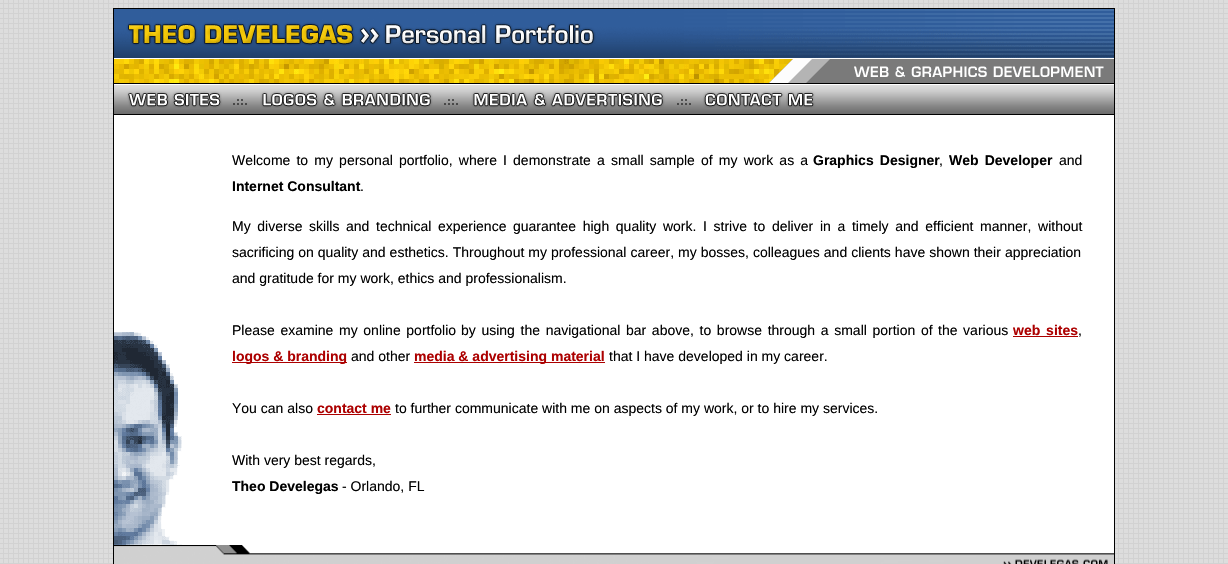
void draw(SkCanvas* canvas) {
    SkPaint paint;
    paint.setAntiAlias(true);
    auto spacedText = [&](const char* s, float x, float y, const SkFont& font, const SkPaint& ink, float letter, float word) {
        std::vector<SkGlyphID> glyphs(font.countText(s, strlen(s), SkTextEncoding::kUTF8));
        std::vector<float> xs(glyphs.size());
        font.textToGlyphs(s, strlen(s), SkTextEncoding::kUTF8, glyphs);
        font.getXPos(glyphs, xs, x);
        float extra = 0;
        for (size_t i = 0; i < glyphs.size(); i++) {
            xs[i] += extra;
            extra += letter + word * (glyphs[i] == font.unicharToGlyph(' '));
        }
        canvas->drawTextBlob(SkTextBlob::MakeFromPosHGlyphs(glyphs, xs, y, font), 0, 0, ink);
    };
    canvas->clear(0xFFFFFFFF);
    canvas->drawImageRect(SkImages::DeferredFromEncodedData(SkData::MakeFromFileName("img1.png")), SkRect::MakeXYWH(0, 0, 1228, 564), SkSamplingOptions());
    paint.setColor(0xFF000000);
    canvas->drawRect(SkRect::MakeXYWH(113, 8, 1002, 556), paint);
    paint.setColor(0xFFFFFFFF);
    canvas->drawRect(SkRect::MakeXYWH(114, 115, 1000, 430), paint);
    canvas->drawImageRect(SkImages::DeferredFromEncodedData(SkData::MakeFromFileName("img2.png")), SkRect::MakeXYWH(114, 9, 1000, 74), SkSamplingOptions());
    canvas->drawImageRect(SkImages::DeferredFromEncodedData(SkData::MakeFromFileName("img3.png")), SkRect::MakeXYWH(114, 83, 112, 32), SkSamplingOptions());
    canvas->drawImageRect(SkImages::DeferredFromEncodedData(SkData::MakeFromFileName("img4.png")), SkRect::MakeXYWH(226, 83, 28, 32), SkSamplingOptions());
    canvas->drawImageRect(SkImages::DeferredFromEncodedData(SkData::MakeFromFileName("img5.png")), SkRect::MakeXYWH(254, 83, 183, 32), SkSamplingOptions());
    canvas->drawImageRect(SkImages::DeferredFromEncodedData(SkData::MakeFromFileName("img6.png")), SkRect::MakeXYWH(437, 83, 27, 32), SkSamplingOptions());
    canvas->drawImageRect(SkImages::DeferredFromEncodedData(SkData::MakeFromFileName("img7.png")), SkRect::MakeXYWH(464, 83, 206, 32), SkSamplingOptions());
    canvas->drawImageRect(SkImages::DeferredFromEncodedData(SkData::MakeFromFileName("img8.png")), SkRect::MakeXYWH(670, 83, 26, 32), SkSamplingOptions());
    canvas->drawImageRect(SkImages::DeferredFromEncodedData(SkData::MakeFromFileName("img9.png")), SkRect::MakeXYWH(696, 83, 128, 32), SkSamplingOptions());
    canvas->drawImageRect(SkImages::DeferredFromEncodedData(SkData::MakeFromFileName("img10.png")), SkRect::MakeXYWH(824, 83, 290, 32), SkSamplingOptions());
    canvas->drawImageRect(SkImages::DeferredFromEncodedData(SkData::MakeFromFileName("img11.png")), SkRect::MakeXYWH(114, 332, 68, 213), SkSamplingOptions());
    SkFont font1(fontMgr->matchFamilyStyle("Liberation Sans", SkFontStyle::Normal()), 14);
    font1.setSubpixel(true);
    paint.setColor(0xFF000000);
    spacedText("Welcome to my personal portfolio, where I demonstrate a small sample of my work as a", 232, 165, font1, paint, 0, 2.25f);
    SkFont font2(fontMgr->matchFamilyStyle("Liberation Sans", SkFontStyle::Bold()), 14);
    font2.setSubpixel(true);
    spacedText("Graphics Designer", 813, 165, font2, paint, 0, 2.25f);
    canvas->drawString(",", 939, 165, font1, paint);
    spacedText("Web Developer", 949, 165, font2, paint, 0, 2.25f);
    canvas->drawString("and", 1059, 165, font1, paint);
    canvas->drawString("Internet Consultant", 232, 191, font2, paint);
    canvas->drawString(".", 360, 191, font1, paint);
    spacedText("My diverse skills and technical experience", 232, 231, font1, paint, 0, 2.75f);
    spacedText("guarantee high quality work. I strive to deliver", 513, 231, font1, paint, 0, 2.75f);
    spacedText("in a timely and efficient manner, without", 820, 231, font1, paint, 0, 2.75f);
    spacedText("sacrificing on quality and esthetics. Throughout my professional career, my bosses, colleagues and clients have shown their appreciation", 232, 257, font1, paint, 0, 0.1f);
    canvas->drawString("and gratitude for my work, ethics and professionalism.", 232, 283, font1, paint);
    spacedText("Please examine my online portfolio", 232, 335, font1, paint, 0, 1.75f);
    spacedText("by using the navigational bar above, to browse through a small portion of", 461, 335, font1, paint, 0, 1.75f);
    spacedText("the various", 938, 335, font1, paint, 0, 1.75f);
    paint.setColor(0xFFAC0000);
    spacedText("web sites", 1013, 335, font2, paint, 0, 2);
    canvas->drawRect(SkRect::MakeXYWH(1013, 336, 65, 1), paint);
    paint.setColor(0xFF000000);
    canvas->drawString(",", 1078, 335, font1, paint);
    paint.setColor(0xFFAC0000);
    canvas->drawRect(SkRect::MakeXYWH(232, 362, 115, 1), paint);
    canvas->drawString("logos & branding", 232, 361, font2, paint);
    paint.setColor(0xFF000000);
    canvas->drawString("and other", 351, 361, font1, paint);
    paint.setColor(0xFFAC0000);
    canvas->drawRect(SkRect::MakeXYWH(414, 362, 191, 1), paint);
    canvas->drawString("media & advertising material", 414, 361, font2, paint);
    paint.setColor(0xFF000000);
    canvas->drawString("that I have developed in my career.", 609, 361, font1, paint);
    canvas->drawString("You can also", 232, 413, font1, paint);
    paint.setColor(0xFFAC0000);
    canvas->drawString("contact me", 317, 413, font2, paint);
    canvas->drawRect(SkRect::MakeXYWH(317, 414, 74, 1), paint);
    paint.setColor(0xFF000000);
    canvas->drawString("to further communicate with me on aspects of my work, or to hire my services.", 395, 413, font1, paint);
    canvas->drawString("With very best regards,", 232, 465, font1, paint);
    canvas->drawString("Theo Develegas", 232, 491, font2, paint);
    canvas->drawString("- Orlando, FL", 342, 491, font1, paint);
    canvas->drawImageRect(SkImages::DeferredFromEncodedData(SkData::MakeFromFileName("img12.png")), SkRect::MakeXYWH(114, 545, 1000, 19), SkSamplingOptions());
}
